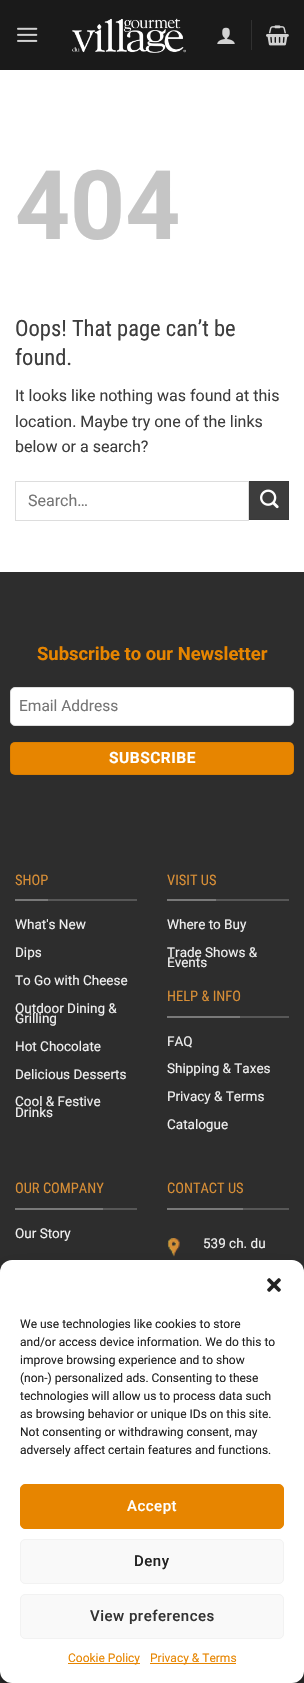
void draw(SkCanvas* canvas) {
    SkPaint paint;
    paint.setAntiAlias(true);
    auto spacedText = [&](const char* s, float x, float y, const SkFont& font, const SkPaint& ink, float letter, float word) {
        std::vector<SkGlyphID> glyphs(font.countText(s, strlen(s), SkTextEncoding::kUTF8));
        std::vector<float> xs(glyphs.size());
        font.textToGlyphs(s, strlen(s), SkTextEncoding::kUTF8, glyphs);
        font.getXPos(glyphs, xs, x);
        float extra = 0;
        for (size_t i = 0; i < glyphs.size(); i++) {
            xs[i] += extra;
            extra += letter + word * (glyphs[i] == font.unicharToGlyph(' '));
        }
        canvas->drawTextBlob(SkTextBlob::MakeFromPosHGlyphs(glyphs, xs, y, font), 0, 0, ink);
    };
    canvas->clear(0xFF2D2D2D);
    paint.setColor(0xFFFFFFFF);
    canvas->drawRect(SkRect::MakeXYWH(0, 70, 304, 1602), paint);
    paint.setColor(0xFF1A1A1A);
    canvas->drawRect(SkRect::MakeXYWH(0, 0, 304, 70), paint);
    canvas->drawImageRect(SkImages::DeferredFromEncodedData(SkData::MakeFromFileName("img1.png")), SkRect::MakeXYWH(17, 27, 21, 15), SkSamplingOptions());
    canvas->drawImageRect(SkImages::DeferredFromEncodedData(SkData::MakeFromFileName("img2.png")), SkRect::MakeXYWH(72, 18, 114, 35), SkSamplingOptions());
    canvas->drawImageRect(SkImages::DeferredFromEncodedData(SkData::MakeFromFileName("img3.png")), SkRect::MakeXYWH(217, 27, 18, 17), SkSamplingOptions());
    paint.setColor(0xFF313131);
    canvas->drawRect(SkRect::MakeXYWH(251, 20, 1, 30), paint);
    canvas->drawImageRect(SkImages::DeferredFromEncodedData(SkData::MakeFromFileName("img4.png")), SkRect::MakeXYWH(266, 25, 23, 21), SkSamplingOptions());
    SkFont font1(fontMgr->matchFamilyStyle("Roboto", SkFontStyle::Bold()), 96);
    font1.setSubpixel(true);
    paint.setColor(0xFFC5C5C5);
    canvas->drawString("404", 15, 239, font1, paint);
    SkFont font2(fontMgr->matchFamilyStyle("Roboto Condensed", SkFontStyle::Normal()), 22.5f);
    font2.setSubpixel(true);
    paint.setColor(0xFF3D3D3D);
    canvas->drawString("Oops! That page can’t be", 15, 336, font2, paint);
    canvas->drawString("found.", 15, 365, font2, paint);
    SkFont font3(fontMgr->matchFamilyStyle("Roboto", SkFontStyle::Normal()), 16);
    font3.setSubpixel(true);
    canvas->drawString("It looks like nothing was found at this", 15, 401, font3, paint);
    canvas->drawString("location. Maybe try one of the links", 15, 427, font3, paint);
    canvas->drawString("below or a search?", 15, 452, font3, paint);
    paint.setStyle(SkPaint::kStroke_Style);
    paint.setStrokeWidth(1);
    paint.setColor(0xFFDDDDDD);
    canvas->drawRect(SkRect::MakeXYWH(15.5f, 481.5f, 233, 39), paint);
    paint.setStyle(SkPaint::kFill_Style);
    paint.setColor(0xFF757575);
    canvas->drawString("Search…", 28, 506, font3, paint);
    paint.setColor(0xFF3D3D3D);
    canvas->drawRect(SkRect::MakeXYWH(249.5f, 481.5f, 39, 38), paint);
    paint.setStyle(SkPaint::kStroke_Style);
    paint.setColor(0xFF3A3A3A);
    canvas->drawRect(SkRect::MakeXYWH(249.5f, 481.5f, 39, 38), paint);
    canvas->drawImageRect(SkImages::DeferredFromEncodedData(SkData::MakeFromFileName("img5.png")), SkRect::MakeXYWH(260, 489, 19, 20), SkSamplingOptions());
    paint.setStyle(SkPaint::kFill_Style);
    paint.setColor(0xFF2D2D2D);
    canvas->drawRect(SkRect::MakeXYWH(0, 572, 304, 700), paint);
    SkFont font4(fontMgr->matchFamilyStyle("Roboto", SkFontStyle::Bold()), 18.4f);
    font4.setSubpixel(true);
    paint.setColor(0xFFE78500);
    canvas->drawString("Subscribe to our Newsletter", 37, 660, font4, paint);
    paint.setColor(0xFFFFFFFF);
    canvas->drawRoundRect(SkRect::MakeXYWH(10.5f, 687.5f, 283, 38), 4.5f, 4.5f, paint);
    paint.setStyle(SkPaint::kStroke_Style);
    paint.setColor(0xFFDDDDDD);
    canvas->drawRoundRect(SkRect::MakeXYWH(10.5f, 687.5f, 283, 38), 4.5f, 4.5f, paint);
    SkFont font5(fontMgr->matchFamilyStyle("Roboto", SkFontStyle::Normal()), 15.5f);
    font5.setSubpixel(true);
    paint.setStyle(SkPaint::kFill_Style);
    paint.setColor(0xFF757575);
    canvas->drawString("Email Address", 19, 711, font5, paint);
    paint.setColor(0xFFE78500);
    canvas->drawRoundRect(SkRect::MakeXYWH(10, 742, 284, 33), 5, 5, paint);
    paint.setStyle(SkPaint::kStroke_Style);
    paint.setColor(0x0D000000);
    canvas->drawRect(SkRect::MakeXYWH(10.5f, 742.5f, 283, 32), paint);
    SkFont font6(fontMgr->matchFamilyStyle("Roboto", SkFontStyle::Bold()), 15.5f);
    font6.setSubpixel(true);
    paint.setStyle(SkPaint::kFill_Style);
    paint.setColor(0xFFFFFFFF);
    spacedText("SUBSCRIBE", 109, 763, font6, paint, 0.5f, 0);
    paint.setColor(0xFF575757);
    canvas->drawRect(SkRect::MakeXYWH(48, 899, 89, 2), paint);
    paint.setColor(0xFF797979);
    canvas->drawRect(SkRect::MakeXYWH(15, 899, 33, 2), paint);
    SkFont font7(fontMgr->matchFamilyStyle("Roboto Condensed", SkFontStyle::Normal()), 14.5f);
    font7.setSubpixel(true);
    paint.setColor(0xFFD78E36);
    canvas->drawString("SHOP", 15, 885, font7, paint);
    SkFont font8(fontMgr->matchFamilyStyle("Roboto", SkFontStyle::Normal()), 13.5f);
    font8.setSubpixel(true);
    paint.setColor(0xFFF1F1F1);
    canvas->drawString("What's New", 15, 929, font8, paint);
    canvas->drawString("Dips", 15, 957, font8, paint);
    canvas->drawString("To Go with Cheese", 15, 985, font8, paint);
    canvas->drawString("Outdoor Dining &", 15, 1013, font8, paint);
    canvas->drawString("Grilling", 15, 1023, font8, paint);
    canvas->drawString("Hot Chocolate", 15, 1051, font8, paint);
    canvas->drawString("Delicious Desserts", 15, 1079, font8, paint);
    canvas->drawString("Cool & Festive", 15, 1106, font8, paint);
    canvas->drawString("Drinks", 15, 1117, font8, paint);
    paint.setColor(0xFF575757);
    canvas->drawRect(SkRect::MakeXYWH(216, 899, 73, 2), paint);
    paint.setColor(0xFF797979);
    canvas->drawRect(SkRect::MakeXYWH(167, 899, 49, 2), paint);
    paint.setColor(0xFFD78E36);
    canvas->drawString("VISIT US", 167, 885, font7, paint);
    paint.setColor(0xFFF1F1F1);
    canvas->drawString("Where to Buy", 167, 929, font8, paint);
    canvas->drawString("Trade Shows &", 167, 957, font8, paint);
    canvas->drawString("Events", 167, 967, font8, paint);
    paint.setColor(0xFF575757);
    canvas->drawRect(SkRect::MakeXYWH(240, 1016, 49, 2), paint);
    paint.setColor(0xFF797979);
    canvas->drawRect(SkRect::MakeXYWH(167, 1016, 73, 2), paint);
    paint.setColor(0xFFD78E36);
    canvas->drawString("HELP & INFO", 167, 1001, font7, paint);
    paint.setColor(0xFFF1F1F1);
    canvas->drawString("FAQ", 167, 1046, font8, paint);
    canvas->drawString("Shipping & Taxes", 167, 1073, font8, paint);
    canvas->drawString("Privacy & Terms", 167, 1101, font8, paint);
    canvas->drawString("Catalogue", 167, 1129, font8, paint);
    paint.setColor(0xFF575757);
    canvas->drawRect(SkRect::MakeXYWH(103, 1208, 34, 2), paint);
    paint.setColor(0xFF797979);
    canvas->drawRect(SkRect::MakeXYWH(15, 1208, 88, 2), paint);
    paint.setColor(0xFFD78E36);
    canvas->drawString("OUR COMPANY", 15, 1193, font7, paint);
    paint.setColor(0xFFF1F1F1);
    canvas->drawString("Our Story", 15, 1238, font8, paint);
    paint.setColor(0xFF575757);
    canvas->drawRect(SkRect::MakeXYWH(243, 1208, 46, 2), paint);
    paint.setColor(0xFF797979);
    canvas->drawRect(SkRect::MakeXYWH(167, 1208, 76, 2), paint);
    paint.setColor(0xFFD78E36);
    canvas->drawString("CONTACT US", 167, 1193, font7, paint);
    canvas->drawImageRect(SkImages::DeferredFromEncodedData(SkData::MakeFromFileName("img6.png")), SkRect::MakeXYWH(167, 1238, 13, 19), SkSamplingOptions());
    paint.setColor(0xFFF1F1F1);
    canvas->drawString("539 ch. du", 203, 1248, font8, paint);
    paint.setColor(0x3B000000);
    paint.setMaskFilter(SkMaskFilter::MakeBlur(kNormal_SkBlurStyle, 3));
    canvas->drawRoundRect(SkRect::MakeXYWH(0, 1266, 304, 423), 12, 12, paint);
    paint.setMaskFilter(nullptr);
    paint.setColor(0x30000000);
    paint.setMaskFilter(SkMaskFilter::MakeBlur(kNormal_SkBlurStyle, 10));
    canvas->drawRoundRect(SkRect::MakeXYWH(0, 1270, 304, 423), 12, 12, paint);
    paint.setMaskFilter(nullptr);
    paint.setColor(0xFFFFFFFF);
    canvas->drawRoundRect(SkRect::MakeXYWH(0, 1260, 304, 423), 12, 12, paint);
    canvas->drawImageRect(SkImages::DeferredFromEncodedData(SkData::MakeFromFileName("img7.png")), SkRect::MakeXYWH(267, 1278, 14, 14), SkSamplingOptions());
    SkFont font9(fontMgr->matchFamilyStyle("Roboto", SkFontStyle::Normal()), 12);
    font9.setSubpixel(true);
    paint.setColor(0xFF222222);
    canvas->drawString("We use technologies like cookies to store", 20, 1328, font9, paint);
    canvas->drawString("and/or access device information. We do this to", 20, 1346, font9, paint);
    canvas->drawString("improve browsing experience and to show", 20, 1364, font9, paint);
    canvas->drawString("(non-) personalized ads. Consenting to these", 20, 1382, font9, paint);
    canvas->drawString("technologies will allow us to process data such", 20, 1400, font9, paint);
    canvas->drawString("as browsing behavior or unique IDs on this site.", 20, 1418, font9, paint);
    canvas->drawString("Not consenting or withdrawing consent, may", 20, 1436, font9, paint);
    canvas->drawString("adversely affect certain features and functions.", 20, 1454, font9, paint);
    paint.setColor(0xFFE78500);
    canvas->drawRoundRect(SkRect::MakeXYWH(20.5f, 1484.5f, 263, 44), 4.5f, 4.5f, paint);
    paint.setStyle(SkPaint::kStroke_Style);
    canvas->drawRoundRect(SkRect::MakeXYWH(20.5f, 1484.5f, 263, 44), 4.5f, 4.5f, paint);
    SkFont font10(fontMgr->matchFamilyStyle("Roboto", SkFontStyle(500, SkFontStyle::kNormal_Width, SkFontStyle::kUpright_Slant)), 15);
    font10.setSubpixel(true);
    paint.setStyle(SkPaint::kFill_Style);
    paint.setColor(0xFFFFFFFF);
    spacedText("Accept", 127, 1511, font10, paint, 0.5f, 0);
    paint.setColor(0xFFF9F9F9);
    canvas->drawRoundRect(SkRect::MakeXYWH(20.5f, 1539.5f, 263, 44), 4.5f, 4.5f, paint);
    paint.setStyle(SkPaint::kStroke_Style);
    paint.setColor(0xFFF2F2F2);
    canvas->drawRoundRect(SkRect::MakeXYWH(20.5f, 1539.5f, 263, 44), 4.5f, 4.5f, paint);
    paint.setStyle(SkPaint::kFill_Style);
    paint.setColor(0xFF222222);
    spacedText("Deny", 134, 1566, font10, paint, 0.5f, 0);
    paint.setColor(0xFFF9F9F9);
    canvas->drawRoundRect(SkRect::MakeXYWH(20.5f, 1594.5f, 263, 44), 4.5f, 4.5f, paint);
    paint.setStyle(SkPaint::kStroke_Style);
    paint.setColor(0xFFF2F2F2);
    canvas->drawRoundRect(SkRect::MakeXYWH(20.5f, 1594.5f, 263, 44), 4.5f, 4.5f, paint);
    paint.setStyle(SkPaint::kFill_Style);
    paint.setColor(0xFF333333);
    spacedText("View preferences", 90, 1621, font10, paint, 0.5f, 0);
    paint.setColor(0xFFE78500);
    canvas->drawRect(SkRect::MakeXYWH(68, 1663, 72, 1), paint);
    canvas->drawString("Cookie Policy", 68, 1662, font9, paint);
    canvas->drawRect(SkRect::MakeXYWH(150, 1663, 86, 1), paint);
    canvas->drawString("Privacy & Terms", 150, 1662, font9, paint);
}
